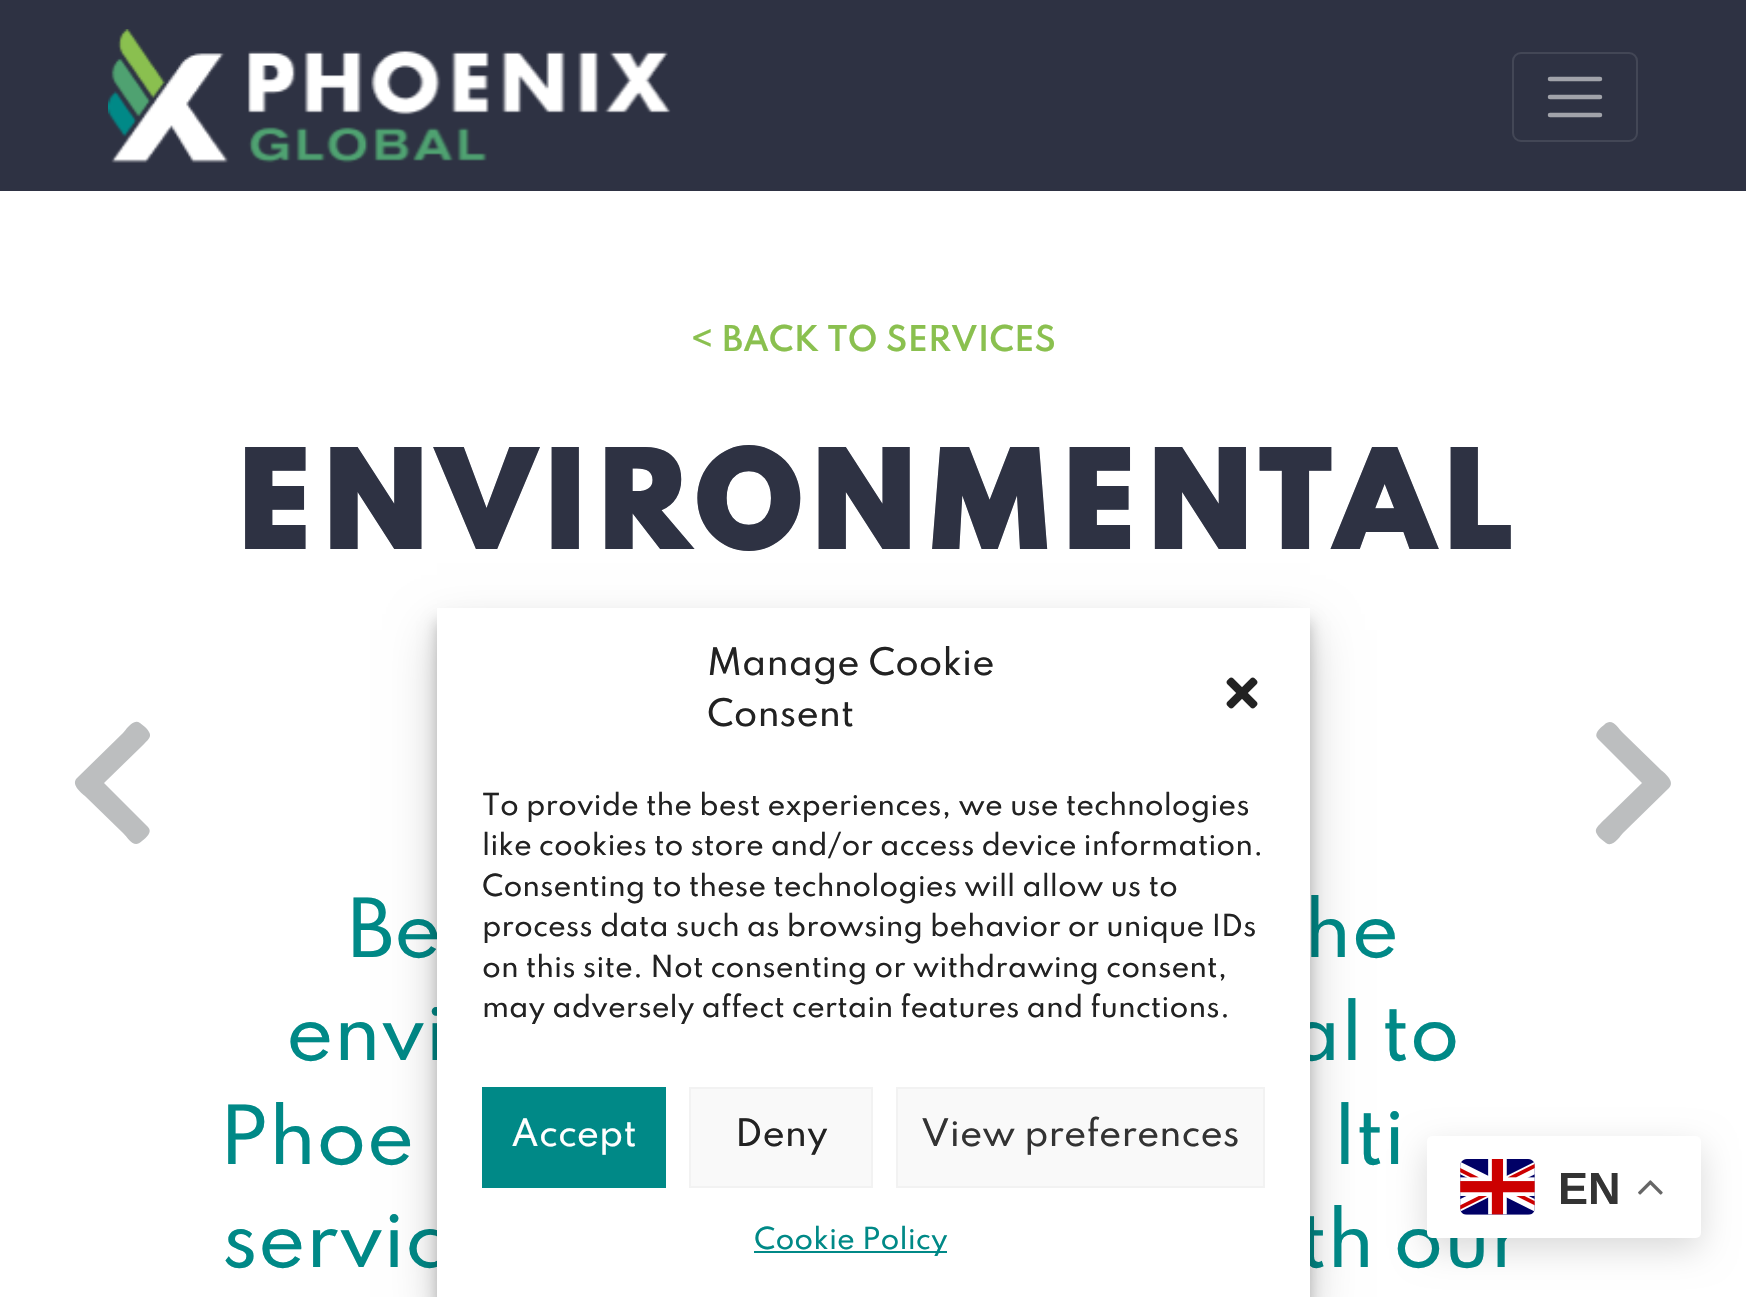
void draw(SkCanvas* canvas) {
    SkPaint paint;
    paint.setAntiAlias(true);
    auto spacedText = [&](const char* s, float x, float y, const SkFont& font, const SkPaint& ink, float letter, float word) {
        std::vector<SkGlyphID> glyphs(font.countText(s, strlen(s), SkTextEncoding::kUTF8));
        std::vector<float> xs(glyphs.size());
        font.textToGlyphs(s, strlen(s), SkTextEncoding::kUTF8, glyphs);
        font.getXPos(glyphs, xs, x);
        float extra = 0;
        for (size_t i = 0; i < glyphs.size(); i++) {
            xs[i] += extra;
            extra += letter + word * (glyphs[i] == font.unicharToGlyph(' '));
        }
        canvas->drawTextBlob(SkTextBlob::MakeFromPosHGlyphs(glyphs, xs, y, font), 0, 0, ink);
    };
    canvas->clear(0xFFFFFFFF);
    paint.setColor(0xFF2E3243);
    canvas->drawRect(SkRect::MakeXYWH(0, 0, 1746, 191), paint);
    canvas->drawImageRect(SkImages::DeferredFromEncodedData(SkData::MakeFromFileName("img1.png")), SkRect::MakeXYWH(108, 29, 563, 134), SkSamplingOptions());
    paint.setStyle(SkPaint::kStroke_Style);
    paint.setStrokeWidth(2);
    paint.setColor(0xFF434756);
    canvas->drawRoundRect(SkRect::MakeXYWH(1513, 53, 124, 88), 8, 8, paint);
    paint.setStrokeWidth(4.5f);
    paint.setStrokeCap(SkPaint::kRound_Cap);
    paint.setColor(0xFFA1A3AA);
    canvas->drawPath(SkPathBuilder().moveTo(1550, 79).lineTo(1600, 79).moveTo(1550, 97).lineTo(1600, 97).moveTo(1550, 115).lineTo(1600, 115).detach(), paint);
    paint.setStyle(SkPaint::kFill_Style);
    paint.setColor(0xFFBCBEBF);
    canvas->drawPath(SkPathBuilder().moveTo(77, 778).lineTo(123, 733).cubicTo(126, 730, 133, 718, 140, 723).lineTo(145, 727).cubicTo(154, 736, 150, 738, 141, 747).lineTo(104, 783).lineTo(148, 827).cubicTo(153, 832, 146, 838, 142, 841).cubicTo(134, 849, 129, 839, 123, 833).lineTo(86, 797).cubicTo(83, 794, 70, 785, 77, 778).close().detach(), paint);
    SkFont font1(fontMgr->matchFamilyStyle("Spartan", SkFontStyle(600, SkFontStyle::kNormal_Width, SkFontStyle::kUpright_Slant)), 31.5f);
    font1.setSubpixel(true);
    paint.setColor(0xFF8AC04F);
    canvas->drawString("< BACK TO SERVICES", 691, 351, font1, paint);
    SkFont font2(fontMgr->matchFamilyStyle("Spartan", SkFontStyle(900, SkFontStyle::kNormal_Width, SkFontStyle::kUpright_Slant)), 123.75f);
    font2.setSubpixel(true);
    paint.setColor(0xFF2E3243);
    spacedText("ENVIRONMENTAL", 233, 549, font2, paint, 2.25f, 0);
    SkFont font3(fontMgr->matchFamilyStyle("Spartan", SkFontStyle(500, SkFontStyle::kNormal_Width, SkFontStyle::kUpright_Slant)), 72);
    font3.setSubpixel(true);
    paint.setColor(0xFF008987);
    canvas->drawString("Be", 347, 957, font3, paint);
    canvas->drawString("he", 1304, 957, font3, paint);
    canvas->drawString("envi", 286, 1060, font3, paint);
    canvas->drawString("al to", 1289, 1060, font3, paint);
    canvas->drawString("Phoe", 219, 1164, font3, paint);
    canvas->drawString("lti", 1334, 1164, font3, paint);
    canvas->drawString("servic", 222, 1267, font3, paint);
    canvas->drawString("th our", 1299, 1267, font3, paint);
    paint.setColor(0xFFBCBEBF);
    canvas->drawPath(SkPathBuilder().moveTo(1669, 788).lineTo(1623, 833).cubicTo(1620, 836, 1613, 848, 1606, 843).lineTo(1601, 839).cubicTo(1592, 830, 1596, 828, 1605, 819).lineTo(1642, 783).lineTo(1598, 739).cubicTo(1593, 734, 1600, 728, 1604, 725).cubicTo(1612, 717, 1617, 727, 1623, 733).lineTo(1660, 769).cubicTo(1663, 772, 1676, 781, 1669, 788).close().detach(), paint);
    paint.setColor(0x3B000000);
    paint.setMaskFilter(SkMaskFilter::MakeBlur(kNormal_SkBlurStyle, 7));
    canvas->drawRect(SkRect::MakeXYWH(437, 621, 873, 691), paint);
    paint.setMaskFilter(nullptr);
    paint.setColor(0x30000000);
    paint.setMaskFilter(SkMaskFilter::MakeBlur(kNormal_SkBlurStyle, 22.5f));
    canvas->drawRect(SkRect::MakeXYWH(437, 630, 873, 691), paint);
    paint.setMaskFilter(nullptr);
    paint.setColor(0xFFFFFFFF);
    canvas->drawRect(SkRect::MakeXYWH(437, 608, 873, 689), paint);
    SkFont font4(fontMgr->matchFamilyStyle("Spartan", SkFontStyle(500, SkFontStyle::kNormal_Width, SkFontStyle::kUpright_Slant)), 33.75f);
    font4.setSubpixel(true);
    paint.setColor(0xFF222222);
    canvas->drawString("Manage Cookie", 707, 675, font4, paint);
    canvas->drawString("Consent", 707, 726, font4, paint);
    canvas->drawImageRect(SkImages::DeferredFromEncodedData(SkData::MakeFromFileName("img2.png")), SkRect::MakeXYWH(1226, 677, 32, 32), SkSamplingOptions());
    SkFont font5(fontMgr->matchFamilyStyle("Spartan", SkFontStyle(500, SkFontStyle::kNormal_Width, SkFontStyle::kUpright_Slant)), 27);
    font5.setSubpixel(true);
    canvas->drawString("To provide the best experiences, we use technologies", 482, 815, font5, paint);
    canvas->drawString("like cookies to store and/or access device information.", 482, 855, font5, paint);
    canvas->drawString("Consenting to these technologies will allow us to", 482, 896, font5, paint);
    canvas->drawString("process data such as browsing behavior or unique IDs", 482, 936, font5, paint);
    canvas->drawString("on this site. Not consenting or withdrawing consent,", 482, 977, font5, paint);
    canvas->drawString("may adversely affect certain features and functions.", 482, 1017, font5, paint);
    paint.setColor(0xFF008987);
    canvas->drawRect(SkRect::MakeXYWH(482, 1087, 184, 101), paint);
    paint.setColor(0xFFFFFFFF);
    canvas->drawString("Accept", 511, 1146, font4, paint);
    paint.setColor(0xFFF9F9F9);
    canvas->drawRect(SkRect::MakeXYWH(690, 1088, 182, 99), paint);
    paint.setStyle(SkPaint::kStroke_Style);
    paint.setStrokeWidth(2);
    paint.setStrokeCap(SkPaint::kButt_Cap);
    paint.setColor(0xFFF2F2F2);
    canvas->drawRect(SkRect::MakeXYWH(690, 1088, 182, 99), paint);
    paint.setStyle(SkPaint::kFill_Style);
    paint.setColor(0xFF222222);
    canvas->drawString("Deny", 735, 1146, font4, paint);
    paint.setColor(0xFFF9F9F9);
    canvas->drawRect(SkRect::MakeXYWH(897, 1088, 367, 99), paint);
    paint.setStyle(SkPaint::kStroke_Style);
    paint.setColor(0xFFF2F2F2);
    canvas->drawRect(SkRect::MakeXYWH(897, 1088, 367, 99), paint);
    paint.setStyle(SkPaint::kFill_Style);
    paint.setColor(0xFF333333);
    canvas->drawString("View preferences", 921, 1146, font4, paint);
    paint.setColor(0xFF008987);
    canvas->drawRect(SkRect::MakeXYWH(754, 1251, 193, 2), paint);
    canvas->drawString("Cookie Policy", 754, 1249, font5, paint);
    paint.setColor(0x26000000);
    paint.setMaskFilter(SkMaskFilter::MakeBlur(kNormal_SkBlurStyle, 17));
    canvas->drawRoundRect(SkRect::MakeXYWH(1427, 1148, 274, 101), 5, 5, paint);
    paint.setMaskFilter(nullptr);
    paint.setColor(0xFFFFFFFF);
    canvas->drawRoundRect(SkRect::MakeXYWH(1427, 1136, 274, 102), 5, 5, paint);
    canvas->drawImageRect(SkImages::DeferredFromEncodedData(SkData::MakeFromFileName("img3.png")), SkRect::MakeXYWH(1460, 1159, 75, 56), SkSamplingOptions());
    SkFont font6(fontMgr->matchFamilyStyle("Liberation Sans", SkFontStyle::Bold()), 45);
    font6.setSubpixel(true);
    paint.setColor(0xFF333333);
    canvas->drawString("EN", 1558, 1204, font6, paint);
    canvas->drawImageRect(SkImages::DeferredFromEncodedData(SkData::MakeFromFileName("img4.png")), SkRect::MakeXYWH(1638, 1180, 25, 15), SkSamplingOptions());
}
